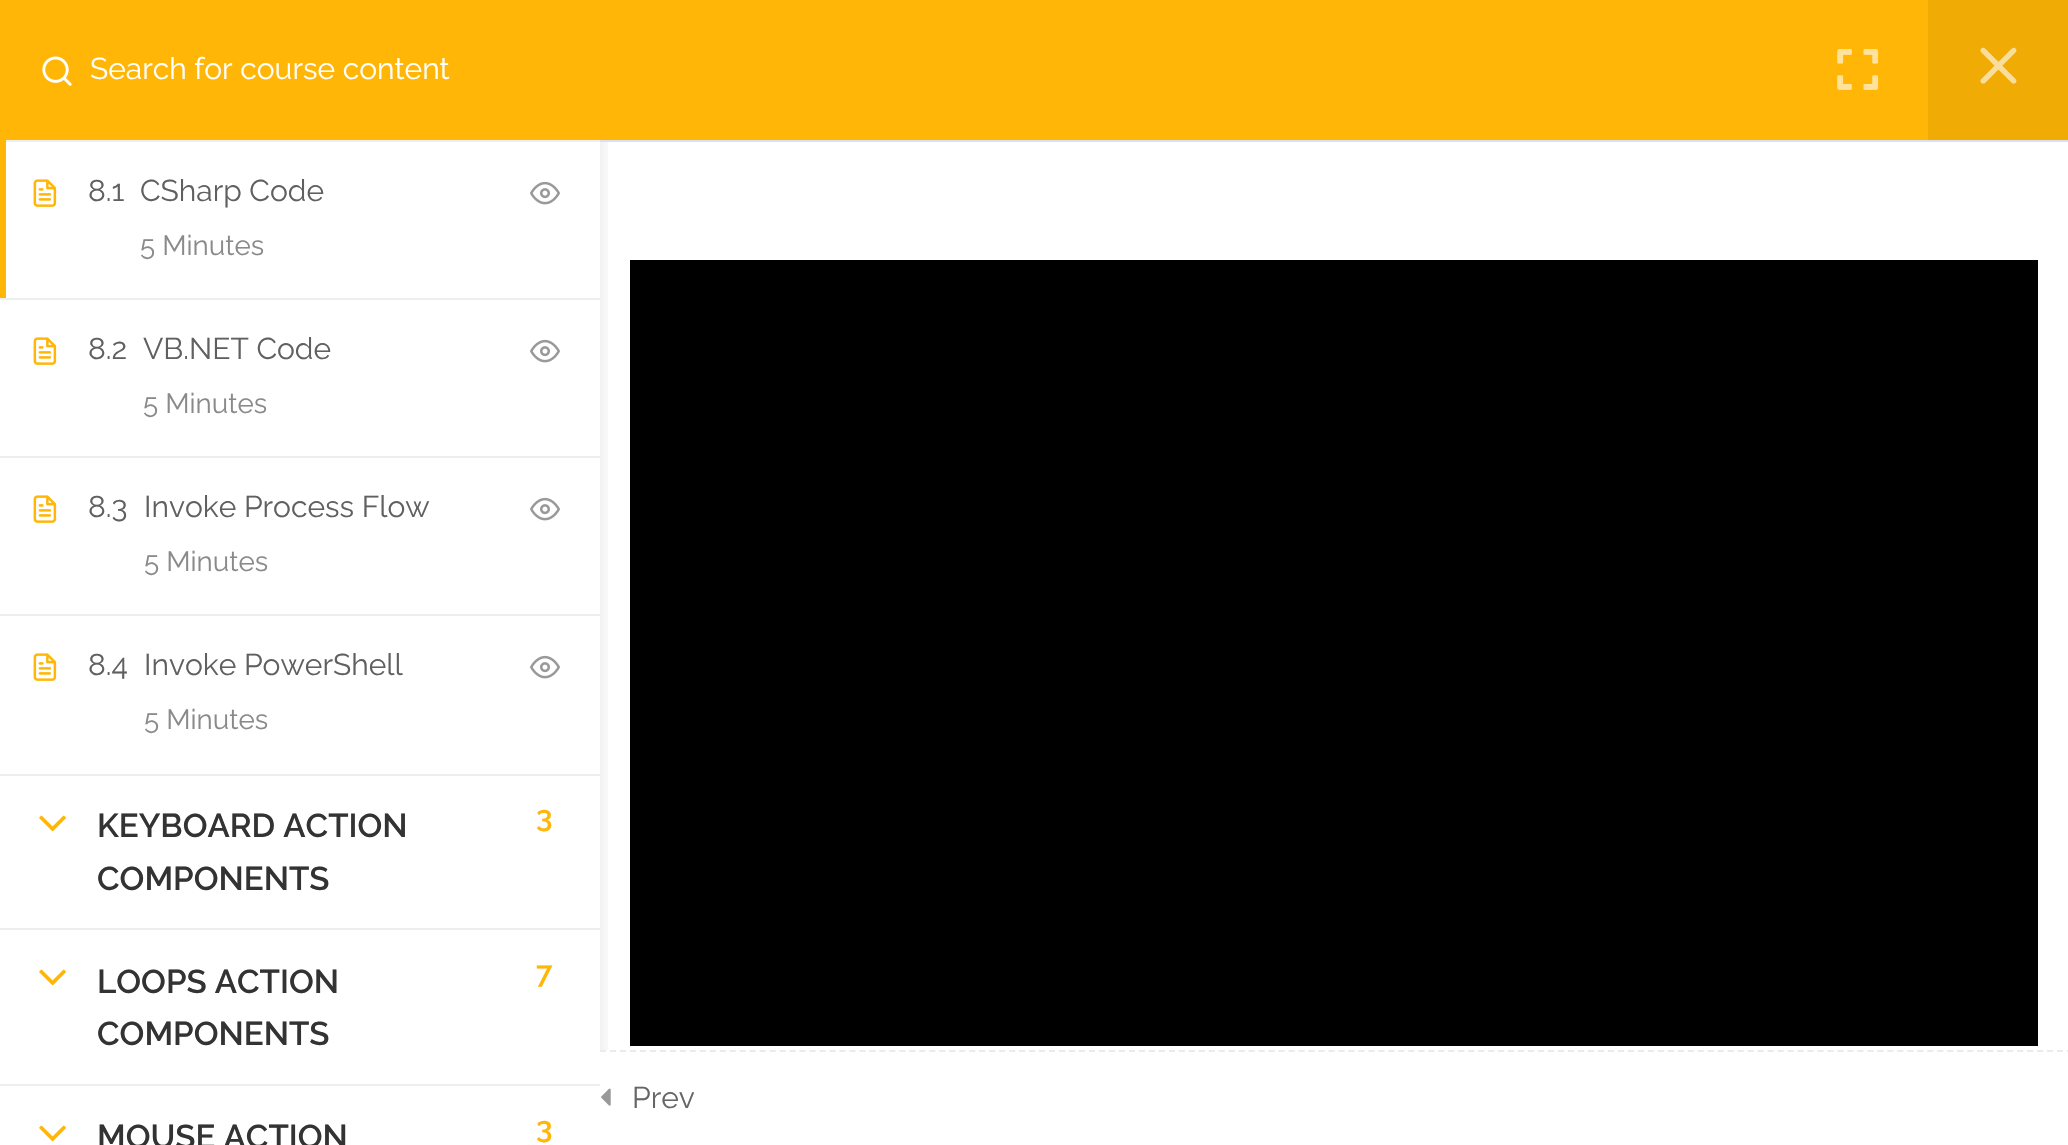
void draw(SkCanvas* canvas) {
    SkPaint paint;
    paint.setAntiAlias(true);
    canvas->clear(0xFFFFFFFF);
    paint.setColor(0xFF000000);
    canvas->drawRect(SkRect::MakeXYWH(630, 260, 1408, 786), paint);
    canvas->save();
    canvas->clipRect(SkRect::MakeXYWH(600, 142, 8, 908));
    paint.setColor(0x1A000000);
    paint.setMaskFilter(SkMaskFilter::MakeBlur(kNormal_SkBlurStyle, 10));
    canvas->drawRect(SkRect::MakeXYWH(0, 4, 600, 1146), paint);
    paint.setMaskFilter(nullptr);
    canvas->restore();
    paint.setColor(0xFFFFB606);
    canvas->drawRect(SkRect::MakeXYWH(0, 0, 1928, 140), paint);
    canvas->drawImageRect(SkImages::DeferredFromEncodedData(SkData::MakeFromFileName("img1.png")), SkRect::MakeXYWH(42, 56, 30, 30), SkSamplingOptions());
    SkFont font1(fontMgr->matchFamilyStyle("Raleway", SkFontStyle::Normal()), 30);
    font1.setSubpixel(true);
    paint.setColor(0xFFFFFFFF);
    canvas->drawString("Search for course content", 90, 79, font1, paint);
    paint.setColor(0xFFEEEEEE);
    canvas->drawRect(SkRect::MakeXYWH(0, 774, 600, 2), paint);
    canvas->drawRect(SkRect::MakeXYWH(0, 140, 600, 2), paint);
    paint.setColor(0xFFFFB606);
    canvas->drawRect(SkRect::MakeXYWH(0, 140, 6, 160), paint);
    canvas->drawImageRect(SkImages::DeferredFromEncodedData(SkData::MakeFromFileName("img2.png")), SkRect::MakeXYWH(33, 179, 24, 28), SkSamplingOptions());
    paint.setColor(0xFF606060);
    canvas->drawString("8.1", 88, 201, font1, paint);
    canvas->drawString("CSharp Code", 140, 201, font1, paint);
    SkFont font2(fontMgr->matchFamilyStyle("Raleway", SkFontStyle::Normal()), 27.75f);
    font2.setSubpixel(true);
    paint.setColor(0xFF8A8A8A);
    canvas->drawString("5 Minutes", 140, 255, font2, paint);
    canvas->drawImageRect(SkImages::DeferredFromEncodedData(SkData::MakeFromFileName("img3.png")), SkRect::MakeXYWH(530, 181, 30, 24), SkSamplingOptions());
    paint.setColor(0xFFEEEEEE);
    canvas->drawRect(SkRect::MakeXYWH(0, 298, 600, 2), paint);
    canvas->drawImageRect(SkImages::DeferredFromEncodedData(SkData::MakeFromFileName("img2.png")), SkRect::MakeXYWH(33, 337, 24, 28), SkSamplingOptions());
    paint.setColor(0xFF606060);
    canvas->drawString("8.2", 88, 359, font1, paint);
    canvas->drawString("VB.NET Code", 143, 359, font1, paint);
    paint.setColor(0xFF8A8A8A);
    canvas->drawString("5 Minutes", 143, 413, font2, paint);
    canvas->drawImageRect(SkImages::DeferredFromEncodedData(SkData::MakeFromFileName("img3.png")), SkRect::MakeXYWH(530, 339, 30, 24), SkSamplingOptions());
    paint.setColor(0xFFEEEEEE);
    canvas->drawRect(SkRect::MakeXYWH(0, 456, 600, 2), paint);
    canvas->drawImageRect(SkImages::DeferredFromEncodedData(SkData::MakeFromFileName("img2.png")), SkRect::MakeXYWH(33, 495, 24, 28), SkSamplingOptions());
    paint.setColor(0xFF606060);
    canvas->drawString("8.3", 88, 517, font1, paint);
    canvas->drawString("Invoke Process Flow", 144, 517, font1, paint);
    paint.setColor(0xFF8A8A8A);
    canvas->drawString("5 Minutes", 144, 571, font2, paint);
    canvas->drawImageRect(SkImages::DeferredFromEncodedData(SkData::MakeFromFileName("img3.png")), SkRect::MakeXYWH(530, 497, 30, 24), SkSamplingOptions());
    paint.setColor(0xFFEEEEEE);
    canvas->drawRect(SkRect::MakeXYWH(0, 614, 600, 2), paint);
    canvas->drawImageRect(SkImages::DeferredFromEncodedData(SkData::MakeFromFileName("img2.png")), SkRect::MakeXYWH(33, 653, 24, 28), SkSamplingOptions());
    paint.setColor(0xFF606060);
    canvas->drawString("8.4", 88, 675, font1, paint);
    canvas->drawString("Invoke PowerShell", 144, 675, font1, paint);
    paint.setColor(0xFF8A8A8A);
    canvas->drawString("5 Minutes", 144, 729, font2, paint);
    canvas->drawImageRect(SkImages::DeferredFromEncodedData(SkData::MakeFromFileName("img3.png")), SkRect::MakeXYWH(530, 655, 30, 24), SkSamplingOptions());
    paint.setColor(0xFFEEEEEE);
    canvas->drawRect(SkRect::MakeXYWH(0, 928, 600, 2), paint);
    canvas->drawImageRect(SkImages::DeferredFromEncodedData(SkData::MakeFromFileName("img4.png")), SkRect::MakeXYWH(39, 815, 27, 17), SkSamplingOptions());
    SkFont font3(fontMgr->matchFamilyStyle("Raleway", SkFontStyle(600, SkFontStyle::kNormal_Width, SkFontStyle::kUpright_Slant)), 33);
    font3.setSubpixel(true);
    paint.setColor(0xFF333333);
    canvas->drawString("KEYBOARD ACTION", 97, 837, font3, paint);
    canvas->drawString("COMPONENTS", 97, 890, font3, paint);
    SkFont font4(fontMgr->matchFamilyStyle("Raleway", SkFontStyle(600, SkFontStyle::kNormal_Width, SkFontStyle::kUpright_Slant)), 30);
    font4.setSubpixel(true);
    paint.setColor(0xFFFFB606);
    canvas->drawString("3", 536, 827, font4, paint);
    paint.setColor(0xFFEEEEEE);
    canvas->drawRect(SkRect::MakeXYWH(0, 1084, 600, 2), paint);
    canvas->drawImageRect(SkImages::DeferredFromEncodedData(SkData::MakeFromFileName("img4.png")), SkRect::MakeXYWH(39, 969, 27, 17), SkSamplingOptions());
    paint.setColor(0xFF333333);
    canvas->drawString("LOOPS ACTION", 97, 993, font3, paint);
    canvas->drawString("COMPONENTS", 97, 1045, font3, paint);
    paint.setColor(0xFFFFB606);
    canvas->drawString("7", 536, 983, font4, paint);
    canvas->drawImageRect(SkImages::DeferredFromEncodedData(SkData::MakeFromFileName("img4.png")), SkRect::MakeXYWH(39, 1125, 27, 17), SkSamplingOptions());
    paint.setColor(0xFF333333);
    canvas->drawString("MOUSE ACTION", 97, 1148, font3, paint);
    paint.setColor(0xFFFFB606);
    canvas->drawString("3", 536, 1138, font4, paint);
    paint.setColor(0xFFD9E0F1);
    canvas->drawRect(SkRect::MakeXYWH(600, 140, 1468, 2), paint);
    canvas->drawImageRect(SkImages::DeferredFromEncodedData(SkData::MakeFromFileName("img5.png")), SkRect::MakeXYWH(1837, 49, 42, 41), SkSamplingOptions());
    paint.setColor(0xFFF0AB04);
    canvas->drawRect(SkRect::MakeXYWH(1928, 0, 140, 140), paint);
    canvas->drawImageRect(SkImages::DeferredFromEncodedData(SkData::MakeFromFileName("img6.png")), SkRect::MakeXYWH(1980, 47, 37, 37), SkSamplingOptions());
    paint.setColor(0xFFFFFFFF);
    canvas->drawRect(SkRect::MakeXYWH(600, 1050, 13, 95), paint);
    paint.setStyle(SkPaint::kStroke_Style);
    paint.setStrokeWidth(2);
    paint.setColor(0xFFEBEBEB);
    paint.setPathEffect(SkDashPathEffect::Make({{6, 3.98f}}, 0));
    canvas->drawPath(SkPathBuilder().moveTo(600, 1051).lineTo(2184, 1051).detach(), paint);
    paint.setPathEffect(nullptr);
    canvas->drawImageRect(SkImages::DeferredFromEncodedData(SkData::MakeFromFileName("img7.png")), SkRect::MakeXYWH(601, 1088, 10, 18), SkSamplingOptions());
    paint.setStyle(SkPaint::kFill_Style);
    paint.setColor(0xFF666666);
    canvas->drawString("Prev", 632, 1108, font1, paint);
}
